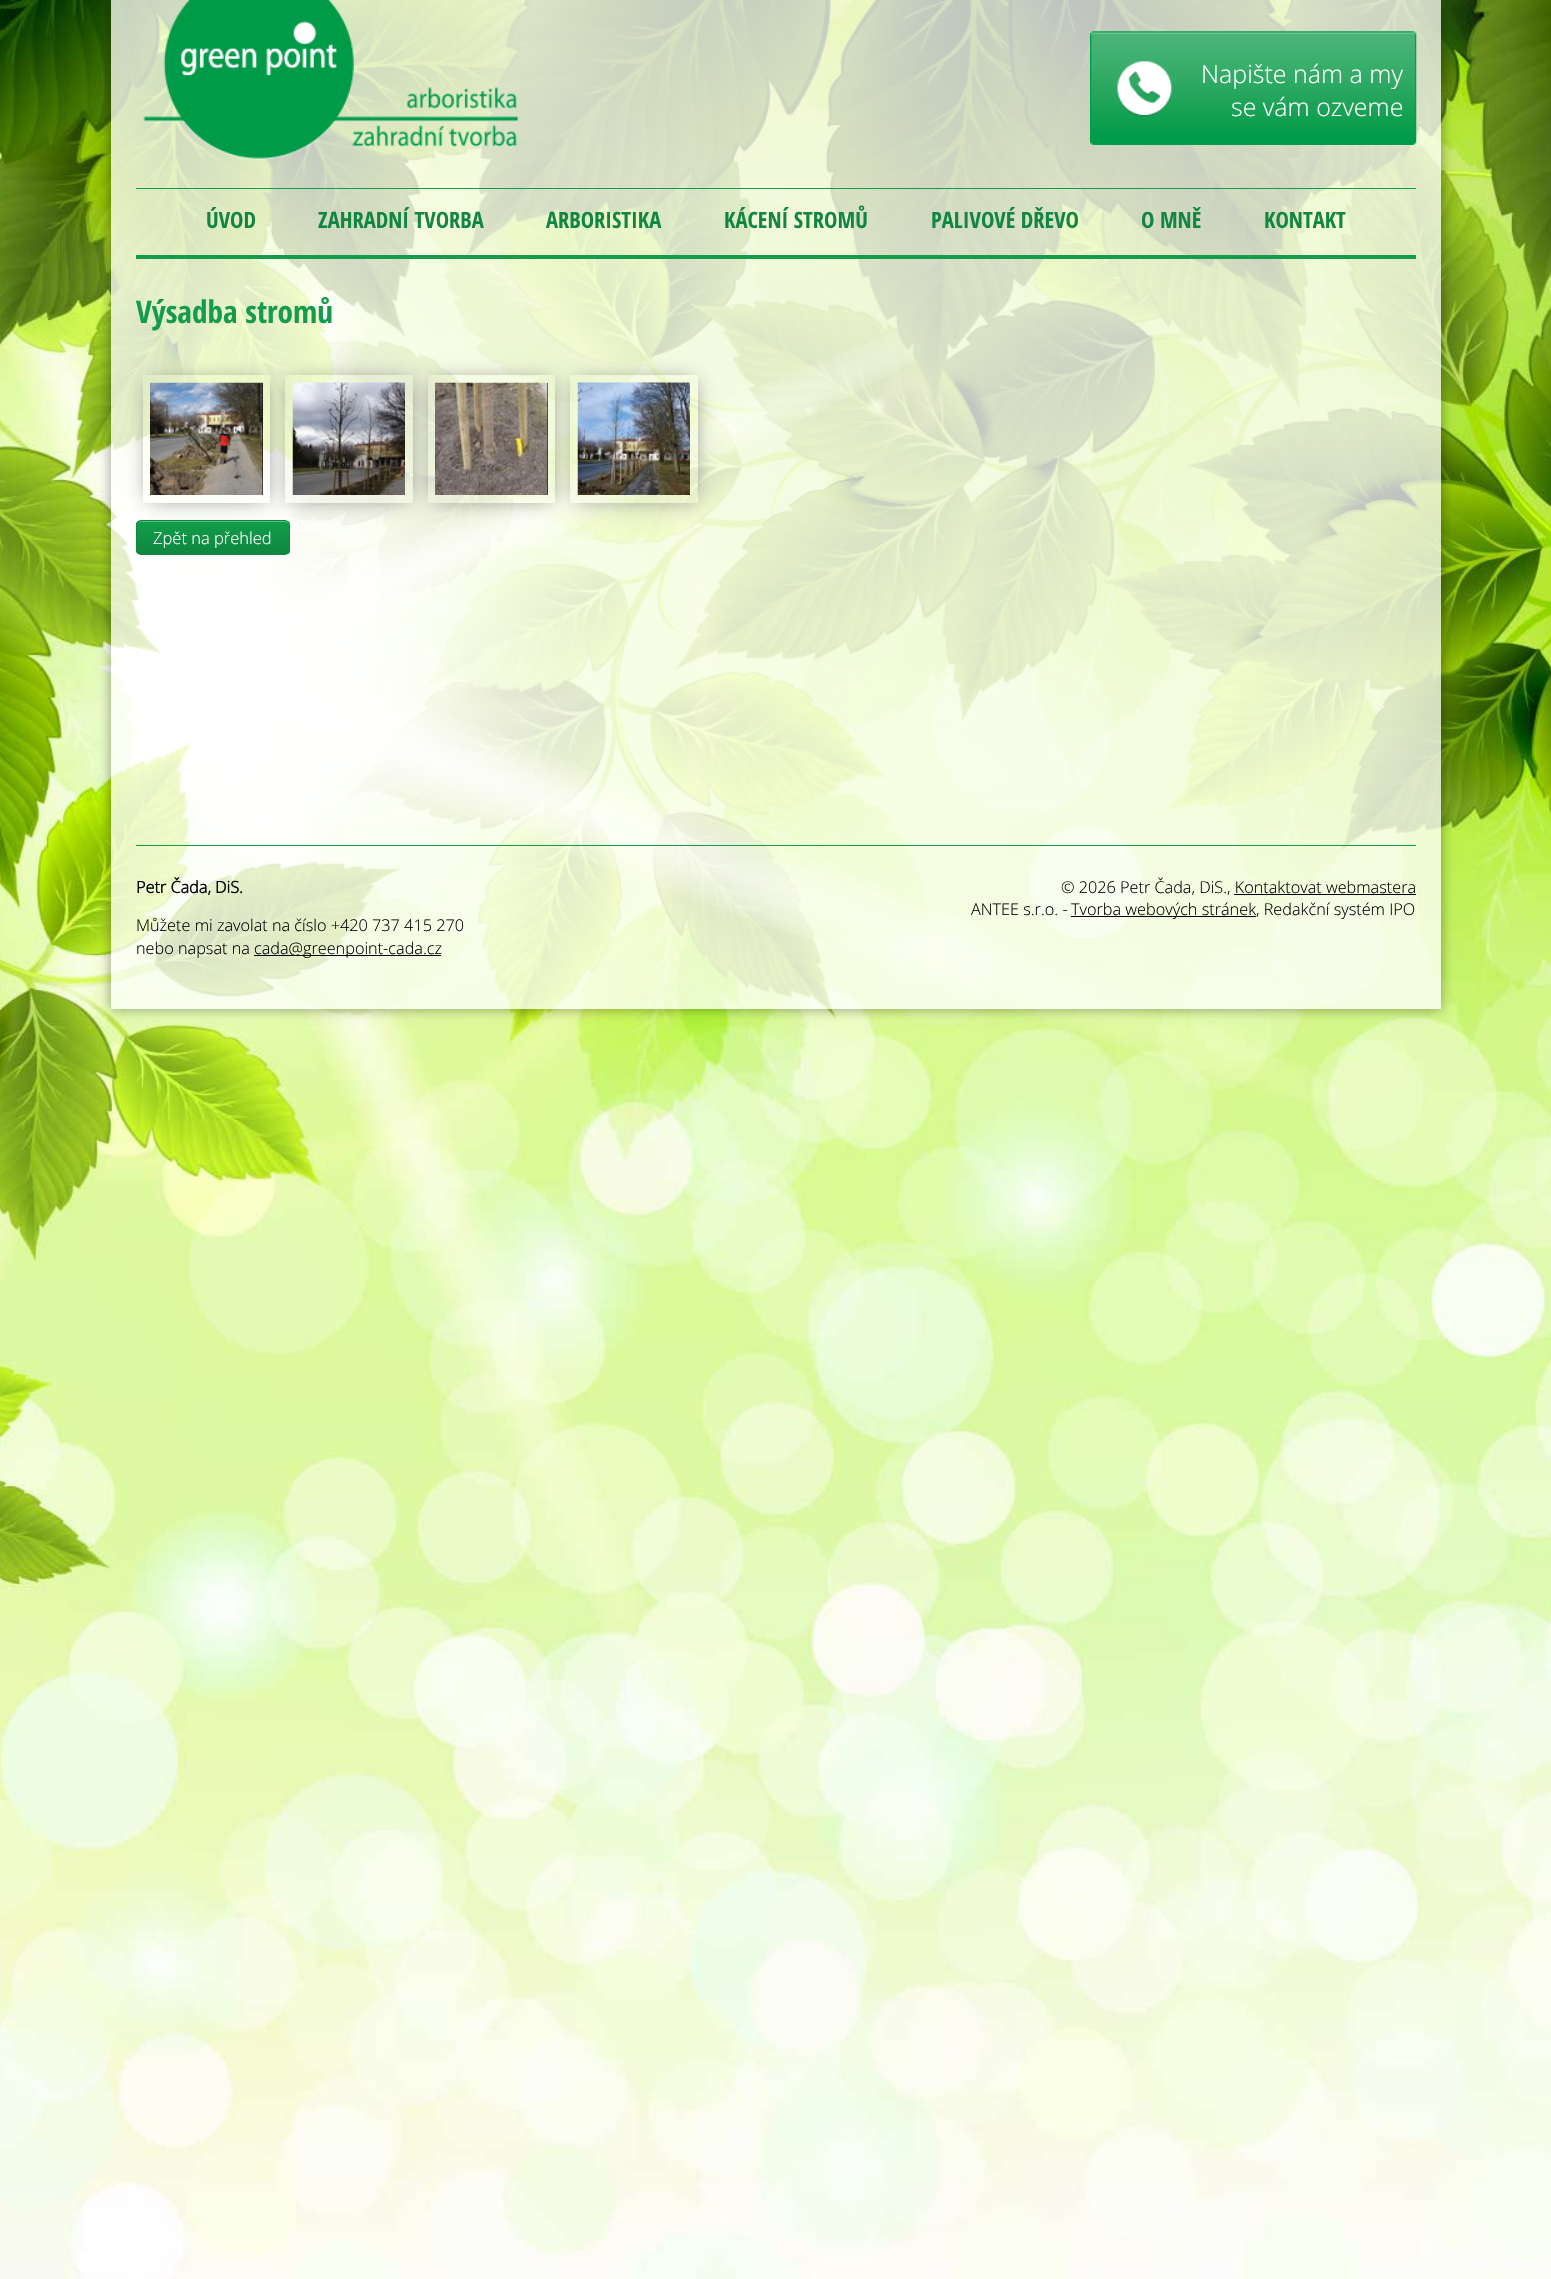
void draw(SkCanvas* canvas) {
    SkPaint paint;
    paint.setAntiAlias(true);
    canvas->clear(0xFFFFFFFF);
    canvas->drawImageRect(SkImages::DeferredFromEncodedData(SkData::MakeFromFileName("img1.png")), SkRect::MakeXYWH(0, 0, 1551, 2279), SkSamplingOptions());
    canvas->save();
    canvas->clipPath(SkPathBuilder(SkPathFillType::kEvenOdd).moveTo(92, 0).lineTo(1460, 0).lineTo(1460, 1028).lineTo(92, 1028).close().moveTo(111, 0).lineTo(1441, 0).lineTo(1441, 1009).lineTo(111, 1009).close().detach(), true);
    paint.setColor(0x66000000);
    paint.setMaskFilter(SkMaskFilter::MakeBlur(kNormal_SkBlurStyle, 6));
    canvas->drawRect(SkRect::MakeXYWH(111, 0, 1330, 1009), paint);
    paint.setMaskFilter(nullptr);
    canvas->restore();
    paint.setColor(0xBFFFFFFF);
    canvas->drawRect(SkRect::MakeXYWH(111, 0, 1330, 1009), paint);
    canvas->drawImageRect(SkImages::DeferredFromEncodedData(SkData::MakeFromFileName("img2.png")), SkRect::MakeXYWH(143, 0, 376, 160), SkSamplingOptions());
    canvas->drawImageRect(SkImages::DeferredFromEncodedData(SkData::MakeFromFileName("img3.png")), SkRect::MakeXYWH(1090, 31, 327, 114), SkSamplingOptions());
    SkFont font1(fontMgr->matchFamilyStyle("Open Sans", SkFontStyle(300, SkFontStyle::kNormal_Width, SkFontStyle::kUpright_Slant)), 25);
    font1.setSubpixel(true);
    paint.setColor(0xFFFFFFFF);
    canvas->drawString("Napište nám a my", 1201, 83, font1, paint);
    canvas->drawString("se vám ozveme", 1231, 116, font1, paint);
    paint.setColor(0xFF149B4C);
    canvas->drawRect(SkRect::MakeXYWH(136, 188, 1280, 1), paint);
    canvas->drawRect(SkRect::MakeXYWH(136, 255, 1280, 4), paint);
    SkFont font2(fontMgr->matchFamilyStyle("Open Sans Condensed", SkFontStyle::Bold()), 22.5f);
    font2.setSubpixel(true);
    paint.setColor(0xFF108641);
    canvas->drawString("ÚVOD", 206, 228, font2, paint);
    canvas->drawString("ZAHRADNÍ TVORBA", 318, 228, font2, paint);
    canvas->drawString("ARBORISTIKA", 546, 228, font2, paint);
    canvas->drawString("KÁCENÍ STROMŮ", 724, 228, font2, paint);
    canvas->drawString("PALIVOVÉ DŘEVO", 931, 228, font2, paint);
    canvas->drawString("O MNĚ", 1141, 228, font2, paint);
    canvas->drawString("KONTAKT", 1264, 228, font2, paint);
    SkFont font3(fontMgr->matchFamilyStyle("Open Sans Condensed", SkFontStyle::Bold()), 31.25f);
    font3.setSubpixel(true);
    paint.setColor(0xFF149B4C);
    canvas->drawString("Výsadba stromů", 136, 323, font3, paint);
    canvas->save();
    canvas->clipPath(SkPathBuilder().moveTo(141, 520).lineTo(285, 520).cubicTo(288, 520, 290, 522, 290, 525).lineTo(290, 550).cubicTo(290, 553, 288, 555, 285, 555).lineTo(141, 555).cubicTo(138, 555, 136, 553, 136, 550).lineTo(136, 525).cubicTo(136, 522, 138, 520, 141, 520).close().detach(), true);
    {
        const SkColor colors[] = {0xFF119E4A, 0xFF108641};
        const float stops[] = {0, 1};
        const SkPoint ends[] = {{138, 521}, {138, 554}};
        paint.setShader(SkGradientShader::MakeLinear(ends, colors, stops, 2, SkTileMode::kClamp));
        paint.setAlpha(255);
    }
    canvas->drawRect(SkRect::MakeXYWH(136, 521, 154, 33), paint);
    canvas->restore();
    paint.setShader(nullptr);
    paint.setColor(0xFF58BB80);
    canvas->drawPath(SkPathBuilder().moveTo(141, 522).lineTo(285, 522).cubicTo(287, 522, 289, 524, 289, 526).lineTo(289, 525).cubicTo(289, 523, 287, 521, 285, 521).lineTo(142, 521).cubicTo(140, 521, 138, 523, 138, 525).lineTo(138, 526).cubicTo(138, 524, 139, 522, 141, 522).close().detach(), paint);
    paint.setStyle(SkPaint::kStroke_Style);
    paint.setStrokeWidth(1);
    paint.setColor(0xFF108641);
    canvas->drawRoundRect(SkRect::MakeXYWH(136.5f, 520.5f, 153, 34), 4.5f, 4.5f, paint);
    canvas->save();
    canvas->clipPath(SkPathBuilder(SkPathFillType::kEvenOdd).moveTo(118, 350).lineTo(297, 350).lineTo(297, 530).lineTo(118, 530).close().moveTo(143, 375).lineTo(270, 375).lineTo(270, 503).lineTo(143, 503).close().detach(), true);
    paint.setStyle(SkPaint::kFill_Style);
    paint.setColor(0xFF888888);
    paint.setMaskFilter(SkMaskFilter::MakeBlur(kNormal_SkBlurStyle, 10));
    canvas->drawRect(SkRect::MakeXYWH(149, 381, 117, 118), paint);
    paint.setMaskFilter(nullptr);
    canvas->restore();
    paint.setColor(0xFF000000);
    canvas->drawRect(SkRect::MakeXYWH(262, 383, 1, 112), paint);
    canvas->drawImageRect(SkImages::DeferredFromEncodedData(SkData::MakeFromFileName("img4.png")), SkRect::MakeXYWH(150, 382, 113, 113), SkSamplingOptions());
    canvas->save();
    canvas->clipPath(SkPathBuilder(SkPathFillType::kEvenOdd).moveTo(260, 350).lineTo(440, 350).lineTo(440, 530).lineTo(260, 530).close().moveTo(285, 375).lineTo(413, 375).lineTo(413, 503).lineTo(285, 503).close().detach(), true);
    paint.setColor(0xFF888888);
    paint.setMaskFilter(SkMaskFilter::MakeBlur(kNormal_SkBlurStyle, 10));
    canvas->drawRect(SkRect::MakeXYWH(291, 381, 118, 118), paint);
    paint.setMaskFilter(nullptr);
    canvas->restore();
    canvas->drawImageRect(SkImages::DeferredFromEncodedData(SkData::MakeFromFileName("img5.png")), SkRect::MakeXYWH(292, 382, 113, 113), SkSamplingOptions());
    canvas->save();
    canvas->clipPath(SkPathBuilder(SkPathFillType::kEvenOdd).moveTo(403, 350).lineTo(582, 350).lineTo(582, 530).lineTo(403, 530).close().moveTo(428, 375).lineTo(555, 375).lineTo(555, 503).lineTo(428, 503).close().detach(), true);
    paint.setMaskFilter(SkMaskFilter::MakeBlur(kNormal_SkBlurStyle, 10));
    canvas->drawRect(SkRect::MakeXYWH(434, 381, 117, 118), paint);
    paint.setMaskFilter(nullptr);
    canvas->restore();
    paint.setColor(0xFF000000);
    canvas->drawRect(SkRect::MakeXYWH(547, 383, 1, 112), paint);
    canvas->drawImageRect(SkImages::DeferredFromEncodedData(SkData::MakeFromFileName("img6.png")), SkRect::MakeXYWH(435, 382, 113, 113), SkSamplingOptions());
    canvas->save();
    canvas->clipPath(SkPathBuilder(SkPathFillType::kEvenOdd).moveTo(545, 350).lineTo(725, 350).lineTo(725, 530).lineTo(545, 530).close().moveTo(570, 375).lineTo(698, 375).lineTo(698, 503).lineTo(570, 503).close().detach(), true);
    paint.setColor(0xFF888888);
    paint.setMaskFilter(SkMaskFilter::MakeBlur(kNormal_SkBlurStyle, 10));
    canvas->drawRect(SkRect::MakeXYWH(576, 381, 118, 118), paint);
    paint.setMaskFilter(nullptr);
    canvas->restore();
    canvas->drawImageRect(SkImages::DeferredFromEncodedData(SkData::MakeFromFileName("img7.png")), SkRect::MakeXYWH(577, 382, 113, 113), SkSamplingOptions());
    SkFont font4(fontMgr->matchFamilyStyle("Open Sans", SkFontStyle(300, SkFontStyle::kNormal_Width, SkFontStyle::kUpright_Slant)), 16.5f);
    font4.setSubpixel(true);
    paint.setColor(0xFFFFFFFF);
    canvas->drawString("Zpět na přehled", 153, 544, font4, paint);
    paint.setColor(0xFF149B4C);
    canvas->drawRect(SkRect::MakeXYWH(136, 845, 1280, 1), paint);
    SkFont font5(fontMgr->matchFamilyStyle("Open Sans", SkFontStyle::Bold()), 16.25f);
    font5.setSubpixel(true);
    paint.setColor(0xFF000000);
    canvas->drawString("Petr Čada, DiS.", 136, 893, font5, paint);
    SkFont font6(fontMgr->matchFamilyStyle("Open Sans", SkFontStyle(300, SkFontStyle::kNormal_Width, SkFontStyle::kUpright_Slant)), 16.25f);
    font6.setSubpixel(true);
    canvas->drawString("Můžete mi zavolat na číslo +420 737 415 270", 136, 931, font6, paint);
    canvas->drawString("nebo napsat na", 136, 954, font6, paint);
    canvas->drawRect(SkRect::MakeXYWH(254, 955, 187, 1), paint);
    canvas->drawString("cada@greenpoint-cada.cz", 254, 954, font6, paint);
    canvas->drawString("© 2026 Petr Čada, DiS., Kontaktovat webmastera", 1061, 893, font6, paint);
    canvas->drawRect(SkRect::MakeXYWH(1234, 894, 182, 1), paint);
    canvas->drawString("ANTEE s.r.o. -", 971, 915, font6, paint);
    canvas->drawRect(SkRect::MakeXYWH(1071, 916, 185, 1), paint);
    canvas->drawString("Tvorba webových stránek, Redakční systém IPO", 1071, 915, font6, paint);
}
